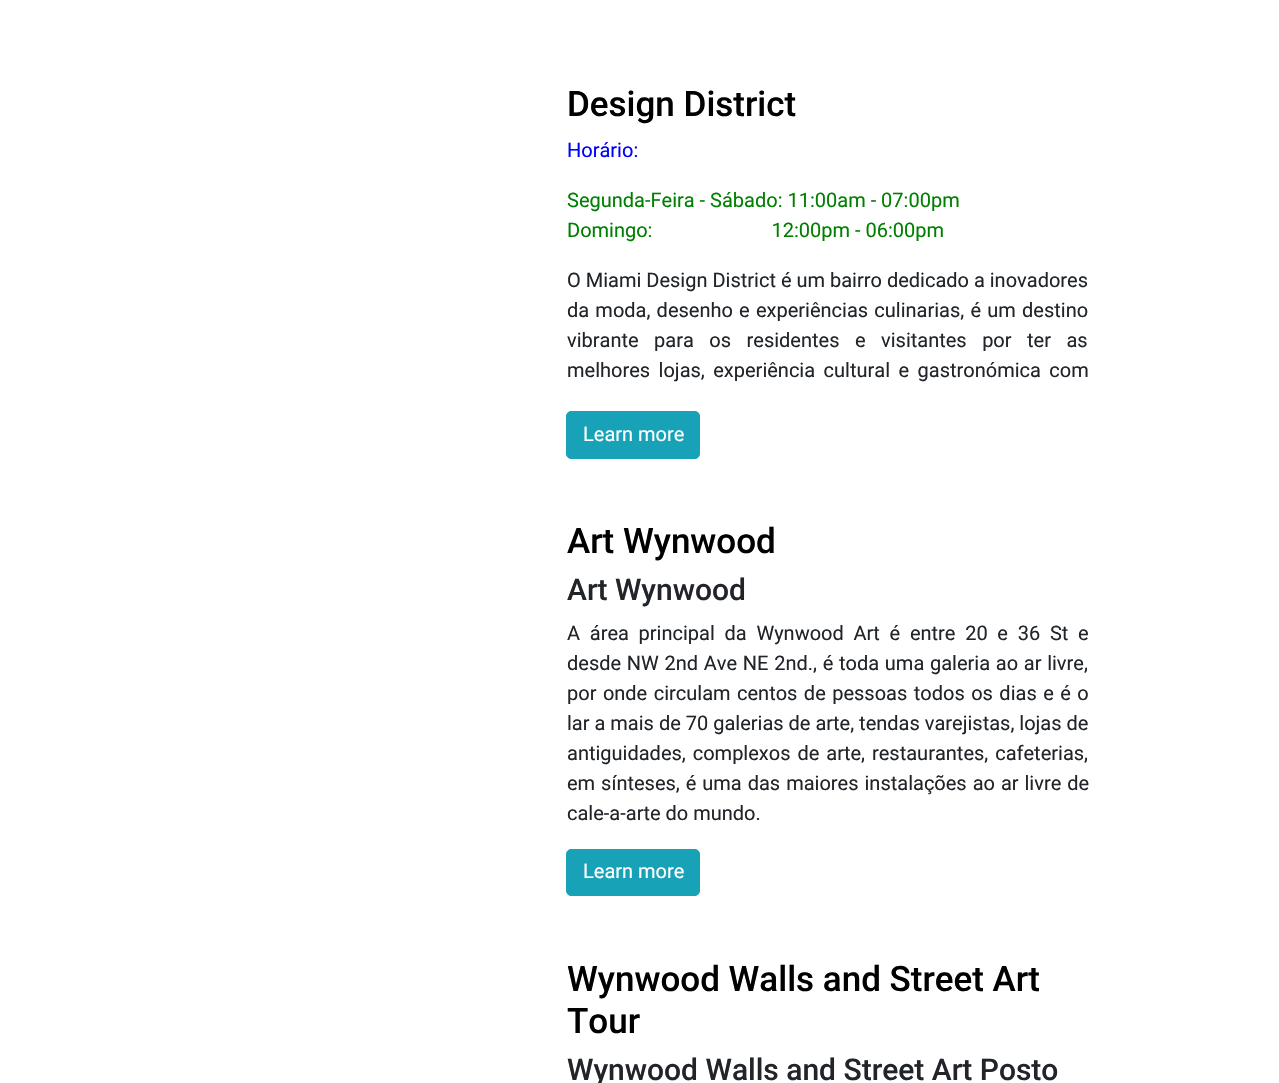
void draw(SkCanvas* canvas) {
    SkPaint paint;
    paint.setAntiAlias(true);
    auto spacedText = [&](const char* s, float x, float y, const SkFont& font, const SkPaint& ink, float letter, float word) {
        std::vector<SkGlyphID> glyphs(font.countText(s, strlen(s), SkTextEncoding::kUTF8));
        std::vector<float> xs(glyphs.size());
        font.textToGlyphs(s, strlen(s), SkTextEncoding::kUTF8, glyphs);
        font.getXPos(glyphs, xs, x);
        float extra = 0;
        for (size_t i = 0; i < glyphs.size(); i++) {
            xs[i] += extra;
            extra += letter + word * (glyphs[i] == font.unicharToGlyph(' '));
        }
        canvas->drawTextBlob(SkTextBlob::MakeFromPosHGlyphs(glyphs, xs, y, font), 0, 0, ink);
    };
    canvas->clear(0xFFFFFFFF);
    SkFont font1(fontMgr->matchFamilyStyle("Roboto", SkFontStyle(500, SkFontStyle::kNormal_Width, SkFontStyle::kUpright_Slant)), 35);
    font1.setSubpixel(true);
    paint.setColor(0xFF000000);
    canvas->drawString("Design District", 567, 116, font1, paint);
    SkFont font2(fontMgr->matchFamilyStyle("Roboto", SkFontStyle::Normal()), 20);
    font2.setSubpixel(true);
    paint.setColor(0xFF0000FF);
    canvas->drawString("Horário:", 567, 157, font2, paint);
    paint.setColor(0xFF008000);
    canvas->drawString("Segunda-Feira - Sábado: 11:00am - 07:00pm", 567, 207, font2, paint);
    canvas->drawString("Domingo:                        12:00pm - 06:00pm", 567, 237, font2, paint);
    paint.setColor(0xFF212529);
    canvas->drawString("O Miami Design District é um bairro dedicado a inovadores", 567, 287, font2, paint);
    spacedText("da moda, desenho e experiências culinarias, é um destino", 567, 317, font2, paint, 0, 1.25f);
    spacedText("vibrante para os residentes e visitantes por ter as", 567, 347, font2, paint, 0, 10.5f);
    spacedText("melhores lojas, experiência cultural e gastronómica com", 567, 377, font2, paint, 0, 3.5f);
    paint.setColor(0xFF17A2B8);
    canvas->drawRoundRect(SkRect::MakeXYWH(566.5f, 411.5f, 133, 47), 4.5f, 4.5f, paint);
    paint.setStyle(SkPaint::kStroke_Style);
    paint.setStrokeWidth(1);
    canvas->drawRoundRect(SkRect::MakeXYWH(566.5f, 411.5f, 133, 47), 4.5f, 4.5f, paint);
    paint.setStyle(SkPaint::kFill_Style);
    paint.setColor(0xFFFFFFFF);
    canvas->drawString("Learn more", 583, 441, font2, paint);
    paint.setColor(0xFF000000);
    canvas->drawString("Art Wynwood", 567, 553, font1, paint);
    SkFont font3(fontMgr->matchFamilyStyle("Roboto", SkFontStyle(500, SkFontStyle::kNormal_Width, SkFontStyle::kUpright_Slant)), 30);
    font3.setSubpixel(true);
    paint.setColor(0xFF212529);
    canvas->drawString("Art Wynwood", 567, 600, font3, paint);
    spacedText("A área principal da Wynwood Art é entre 20 e 36 St e", 567, 640, font2, paint, 0, 4.75f);
    spacedText("desde NW 2nd Ave NE 2nd., é toda uma galeria ao ar livre,", 567, 670, font2, paint, 0, 0.75f);
    spacedText("por onde circulam centos de pessoas todos os dias e é o", 567, 700, font2, paint, 0, 1.5f);
    canvas->drawString("lar a mais de 70 galerias de arte, tendas varejistas, lojas de", 567, 730, font2, paint);
    spacedText("antiguidades, complexos de arte, restaurantes, cafeterias,", 567, 760, font2, paint, 0, 2);
    spacedText("em sínteses, é uma das maiores instalações ao ar livre de", 567, 790, font2, paint, 0, 1);
    canvas->drawString("cale-a-arte do mundo.", 567, 820, font2, paint);
    paint.setColor(0xFF17A2B8);
    canvas->drawRoundRect(SkRect::MakeXYWH(566.5f, 849.5f, 133, 46), 4.5f, 4.5f, paint);
    paint.setStyle(SkPaint::kStroke_Style);
    canvas->drawRoundRect(SkRect::MakeXYWH(566.5f, 849.5f, 133, 46), 4.5f, 4.5f, paint);
    paint.setStyle(SkPaint::kFill_Style);
    paint.setColor(0xFFFFFFFF);
    canvas->drawString("Learn more", 583, 878, font2, paint);
    paint.setColor(0xFF000000);
    canvas->drawString("Wynwood Walls and Street Art", 567, 991, font1, paint);
    canvas->drawString("Tour", 567, 1033, font1, paint);
    paint.setColor(0xFF212529);
    canvas->drawString("Wynwood Walls and Street Art Posto", 567, 1080, font3, paint);
}
